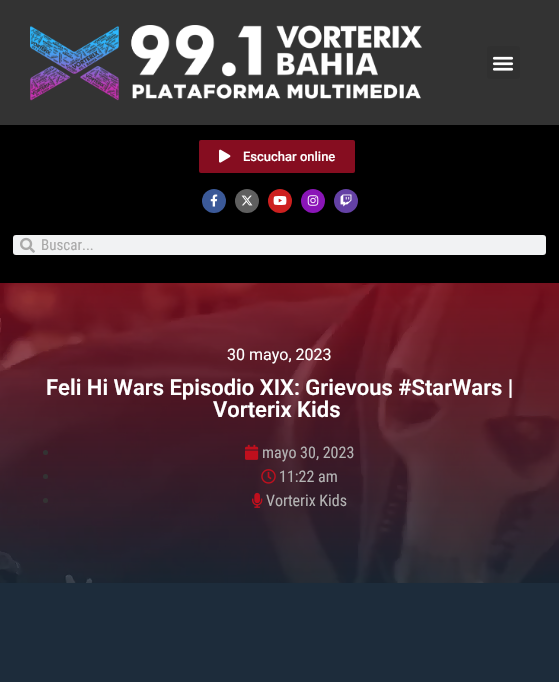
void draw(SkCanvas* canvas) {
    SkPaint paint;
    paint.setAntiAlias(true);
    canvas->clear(0xFF000000);
    paint.setColor(0xFF333333);
    canvas->drawRect(SkRect::MakeXYWH(0, 0, 559, 125), paint);
    canvas->drawImageRect(SkImages::DeferredFromEncodedData(SkData::MakeFromFileName("img1.png")), SkRect::MakeXYWH(30, 25, 392, 76), SkSamplingOptions());
    paint.setColor(0xFF303030);
    canvas->drawRoundRect(SkRect::MakeXYWH(487, 46, 33, 33), 3, 3, paint);
    canvas->drawImageRect(SkImages::DeferredFromEncodedData(SkData::MakeFromFileName("img2.png")), SkRect::MakeXYWH(492, 56, 22, 15), SkSamplingOptions());
    paint.setColor(0xFF860D20);
    canvas->drawRoundRect(SkRect::MakeXYWH(199, 140, 156, 33), 2, 2, paint);
    canvas->drawImageRect(SkImages::DeferredFromEncodedData(SkData::MakeFromFileName("img3.png")), SkRect::MakeXYWH(219, 149, 12, 14), SkSamplingOptions());
    SkFont font1(fontMgr->matchFamilyStyle("Roboto", SkFontStyle(500, SkFontStyle::kNormal_Width, SkFontStyle::kUpright_Slant)), 13);
    font1.setSubpixel(true);
    paint.setColor(0xFFFFFFFF);
    canvas->drawString("Escuchar online", 243, 161, font1, paint);
    paint.setColor(0xFF3B5998);
    canvas->drawCircle(214, 201, 12, paint);
    canvas->drawImageRect(SkImages::DeferredFromEncodedData(SkData::MakeFromFileName("img4.png")), SkRect::MakeXYWH(210, 194, 8, 13), SkSamplingOptions());
    paint.setColor(0xFF5F5F5F);
    canvas->drawCircle(247, 201, 12, paint);
    canvas->drawImageRect(SkImages::DeferredFromEncodedData(SkData::MakeFromFileName("img5.png")), SkRect::MakeXYWH(241, 195, 12, 11), SkSamplingOptions());
    paint.setColor(0xFFCD201F);
    canvas->drawCircle(280, 201, 12, paint);
    canvas->drawImageRect(SkImages::DeferredFromEncodedData(SkData::MakeFromFileName("img6.png")), SkRect::MakeXYWH(273, 196, 14, 9), SkSamplingOptions());
    paint.setColor(0xFF8A15B7);
    canvas->drawCircle(313, 201, 12, paint);
    canvas->drawImageRect(SkImages::DeferredFromEncodedData(SkData::MakeFromFileName("img7.png")), SkRect::MakeXYWH(307, 195, 12, 11), SkSamplingOptions());
    paint.setColor(0xFF6441A5);
    canvas->drawCircle(346, 201, 12, paint);
    canvas->drawImageRect(SkImages::DeferredFromEncodedData(SkData::MakeFromFileName("img8.png")), SkRect::MakeXYWH(340, 194, 12, 13), SkSamplingOptions());
    paint.setColor(0xFFF1F2F3);
    canvas->drawRoundRect(SkRect::MakeXYWH(13, 235, 533, 20), 3, 3, paint);
    canvas->drawImageRect(SkImages::DeferredFromEncodedData(SkData::MakeFromFileName("img9.png")), SkRect::MakeXYWH(20, 237, 15, 16), SkSamplingOptions());
    SkFont font2(fontMgr->matchFamilyStyle("Roboto Condensed", SkFontStyle::Normal()), 15);
    font2.setSubpixel(true);
    paint.setColor(0xFFA9A9A9);
    canvas->drawString("Buscar...", 41, 250, font2, paint);
    canvas->drawImageRect(SkImages::DeferredFromEncodedData(SkData::MakeFromFileName("img10.png")), SkRect::MakeXYWH(0, 283, 559, 300), SkSamplingOptions());
    SkFont font3(fontMgr->matchFamilyStyle("Roboto", SkFontStyle::Normal()), 16);
    font3.setSubpixel(true);
    paint.setColor(0xFFFFFFFF);
    canvas->drawString("30 mayo, 2023", 227, 360, font3, paint);
    SkFont font4(fontMgr->matchFamilyStyle("Roboto", SkFontStyle(600, SkFontStyle::kNormal_Width, SkFontStyle::kUpright_Slant)), 22);
    font4.setSubpixel(true);
    canvas->drawString("Feli Hi Wars Episodio XIX: Grievous #StarWars |", 46, 395, font4, paint);
    canvas->drawString("Vorterix Kids", 213, 417, font4, paint);
    paint.setColor(0xFF333333);
    canvas->drawCircle(45.5f, 452.5f, 2.5f, paint);
    canvas->drawImageRect(SkImages::DeferredFromEncodedData(SkData::MakeFromFileName("img11.png")), SkRect::MakeXYWH(245, 444, 14, 16), SkSamplingOptions());
    SkFont font5(fontMgr->matchFamilyStyle("Roboto Condensed", SkFontStyle::Normal()), 16);
    font5.setSubpixel(true);
    paint.setColor(0xFFB3B3B3);
    canvas->drawString("mayo 30, 2023", 262, 458, font5, paint);
    paint.setColor(0xFF333333);
    canvas->drawCircle(45.5f, 476.5f, 2.5f, paint);
    canvas->drawImageRect(SkImages::DeferredFromEncodedData(SkData::MakeFromFileName("img12.png")), SkRect::MakeXYWH(261, 469, 15, 15), SkSamplingOptions());
    paint.setColor(0xFFB3B3B3);
    canvas->drawString("11:22 am", 279, 482, font5, paint);
    paint.setColor(0xFF333333);
    canvas->drawCircle(45.5f, 500.5f, 2.5f, paint);
    canvas->drawImageRect(SkImages::DeferredFromEncodedData(SkData::MakeFromFileName("img13.png")), SkRect::MakeXYWH(252, 492, 11, 16), SkSamplingOptions());
    paint.setColor(0xFFB3B3B3);
    canvas->drawString("Vorterix Kids", 266, 506, font5, paint);
    paint.setColor(0xFF1D2C3B);
    canvas->drawRect(SkRect::MakeXYWH(0, 583, 559, 99), paint);
}
